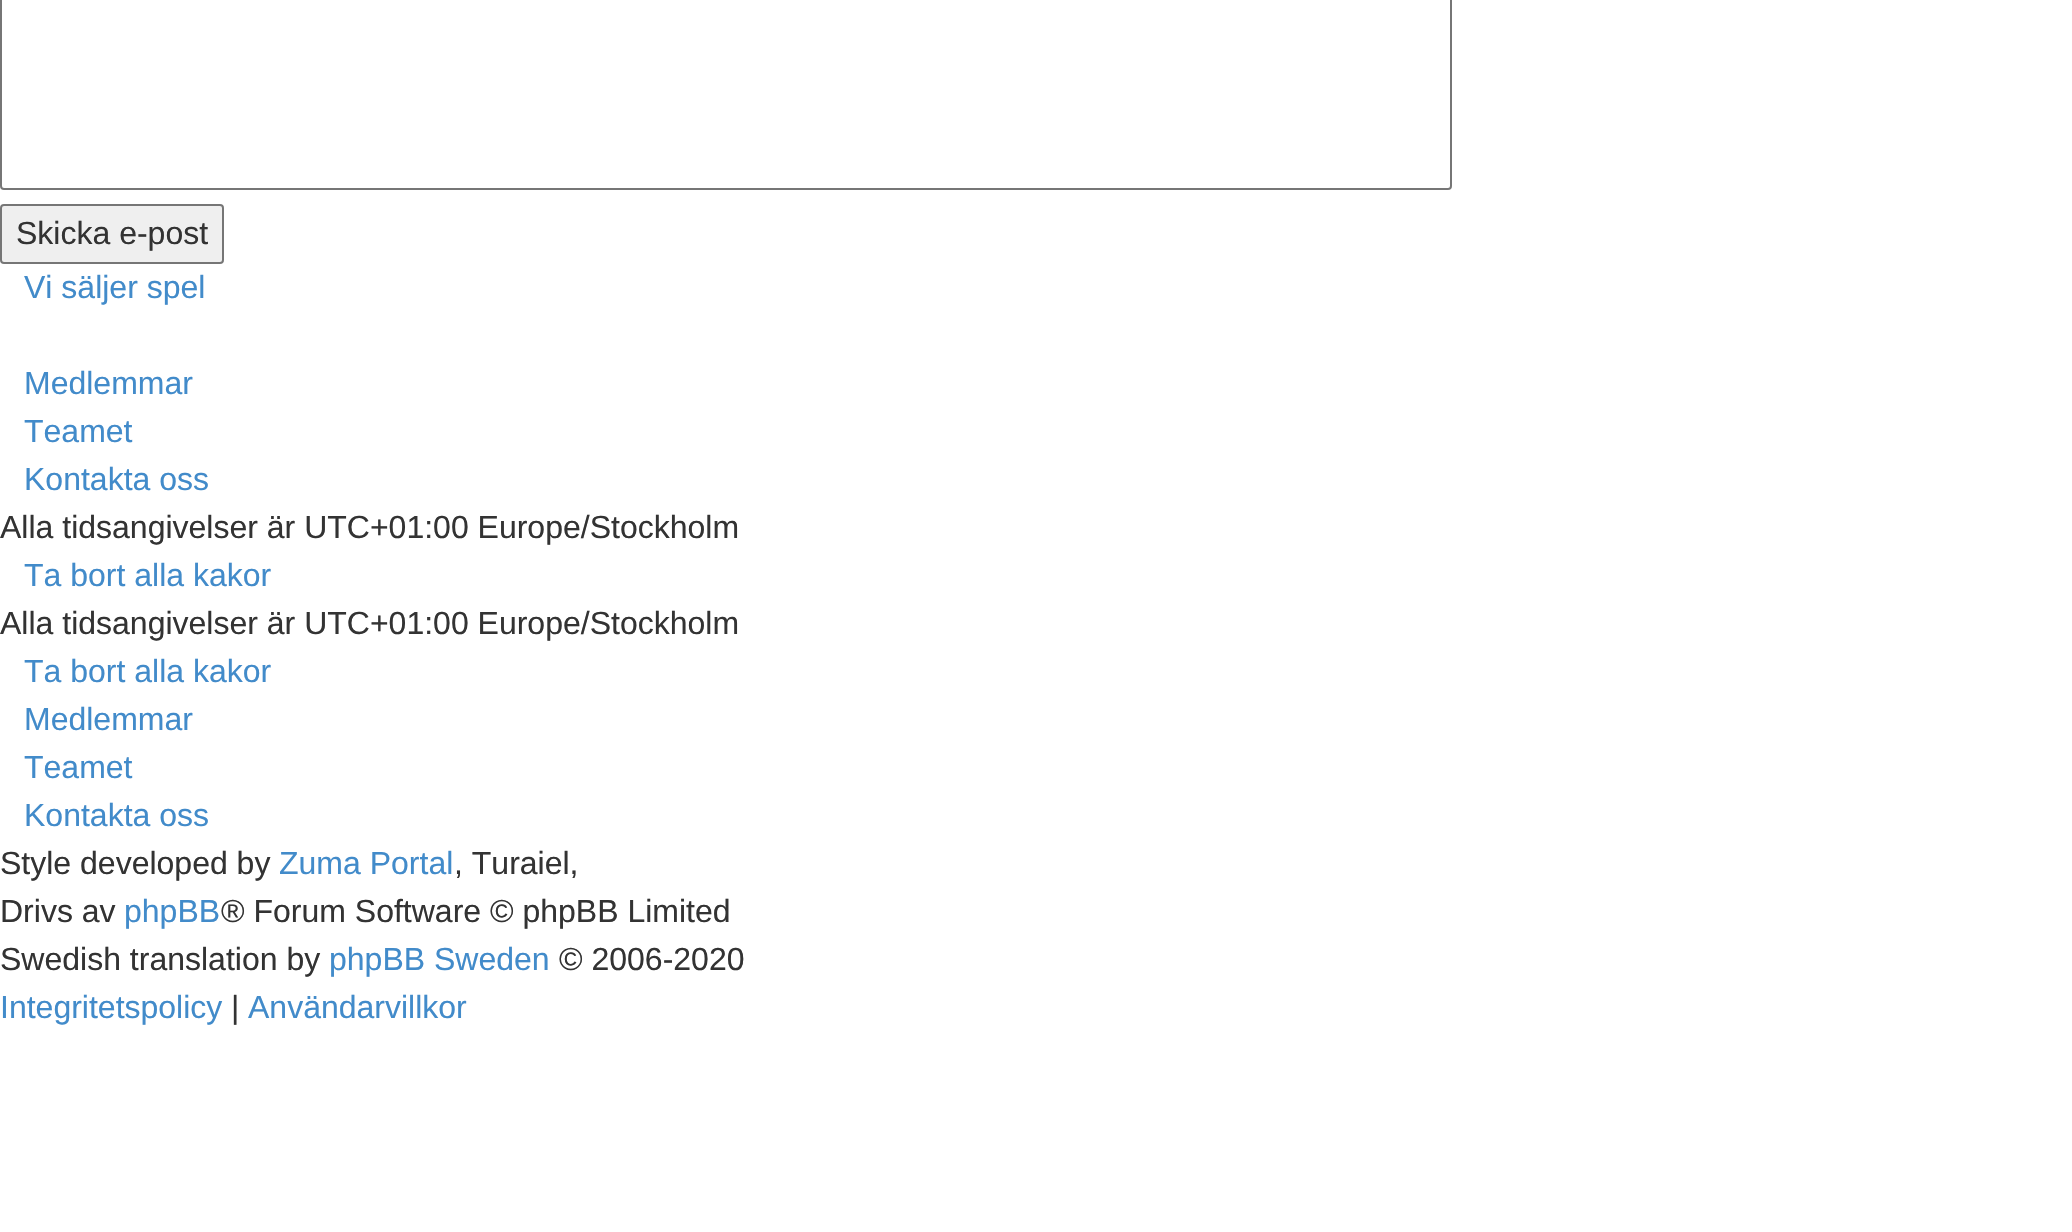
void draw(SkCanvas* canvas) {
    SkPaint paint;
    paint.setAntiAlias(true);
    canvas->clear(0xFFFFFFFF);
    paint.setStyle(SkPaint::kStroke_Style);
    paint.setStrokeWidth(2);
    paint.setColor(0xFF767676);
    canvas->drawRoundRect(SkRect::MakeXYWH(1, -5, 1450, 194), 3, 3, paint);
    paint.setStyle(SkPaint::kFill_Style);
    paint.setColor(0xFFEFEFEF);
    canvas->drawRoundRect(SkRect::MakeXYWH(1, 205, 222, 58), 3, 3, paint);
    paint.setStyle(SkPaint::kStroke_Style);
    paint.setColor(0xFF767676);
    canvas->drawRoundRect(SkRect::MakeXYWH(1, 205, 222, 58), 3, 3, paint);
    SkFont font1(fontMgr->matchFamilyStyle("Liberation Sans", SkFontStyle::Normal()), 32);
    font1.setSubpixel(true);
    paint.setStyle(SkPaint::kFill_Style);
    paint.setColor(0xFF333333);
    canvas->drawString("Skicka e-post", 16, 244, font1, paint);
    paint.setColor(0xFF428BCA);
    canvas->drawString("Vi säljer spel", 24, 298, font1, paint);
    canvas->drawString("Medlemmar", 24, 394, font1, paint);
    canvas->drawString("Teamet", 24, 442, font1, paint);
    canvas->drawString("Kontakta oss", 24, 490, font1, paint);
    paint.setColor(0xFF333333);
    canvas->drawString("Alla tidsangivelser är UTC+01:00 Europe/Stockholm", 0, 538, font1, paint);
    paint.setColor(0xFF428BCA);
    canvas->drawString("Ta bort alla kakor", 24, 586, font1, paint);
    paint.setColor(0xFF333333);
    canvas->drawString("Alla tidsangivelser är UTC+01:00 Europe/Stockholm", 0, 634, font1, paint);
    paint.setColor(0xFF428BCA);
    canvas->drawString("Ta bort alla kakor", 24, 682, font1, paint);
    canvas->drawString("Medlemmar", 24, 730, font1, paint);
    canvas->drawString("Teamet", 24, 778, font1, paint);
    canvas->drawString("Kontakta oss", 24, 826, font1, paint);
    paint.setColor(0xFF333333);
    canvas->drawString("Style developed by", 0, 874, font1, paint);
    paint.setColor(0xFF428BCA);
    canvas->drawString("Zuma Portal", 279, 874, font1, paint);
    paint.setColor(0xFF333333);
    canvas->drawString(", Turaiel,", 454, 874, font1, paint);
    canvas->drawString("Drivs av", 0, 922, font1, paint);
    paint.setColor(0xFF428BCA);
    canvas->drawString("phpBB", 124, 922, font1, paint);
    paint.setColor(0xFF333333);
    canvas->drawString("® Forum Software © phpBB Limited", 221, 922, font1, paint);
    canvas->drawString("Swedish translation by", 0, 970, font1, paint);
    paint.setColor(0xFF428BCA);
    canvas->drawString("phpBB Sweden", 329, 970, font1, paint);
    paint.setColor(0xFF333333);
    canvas->drawString("© 2006-2020", 559, 970, font1, paint);
    paint.setColor(0xFF428BCA);
    canvas->drawString("Integritetspolicy", 0, 1018, font1, paint);
    paint.setColor(0xFF333333);
    canvas->drawString("|", 231, 1018, font1, paint);
    paint.setColor(0xFF428BCA);
    canvas->drawString("Användarvillkor", 248, 1018, font1, paint);
}
